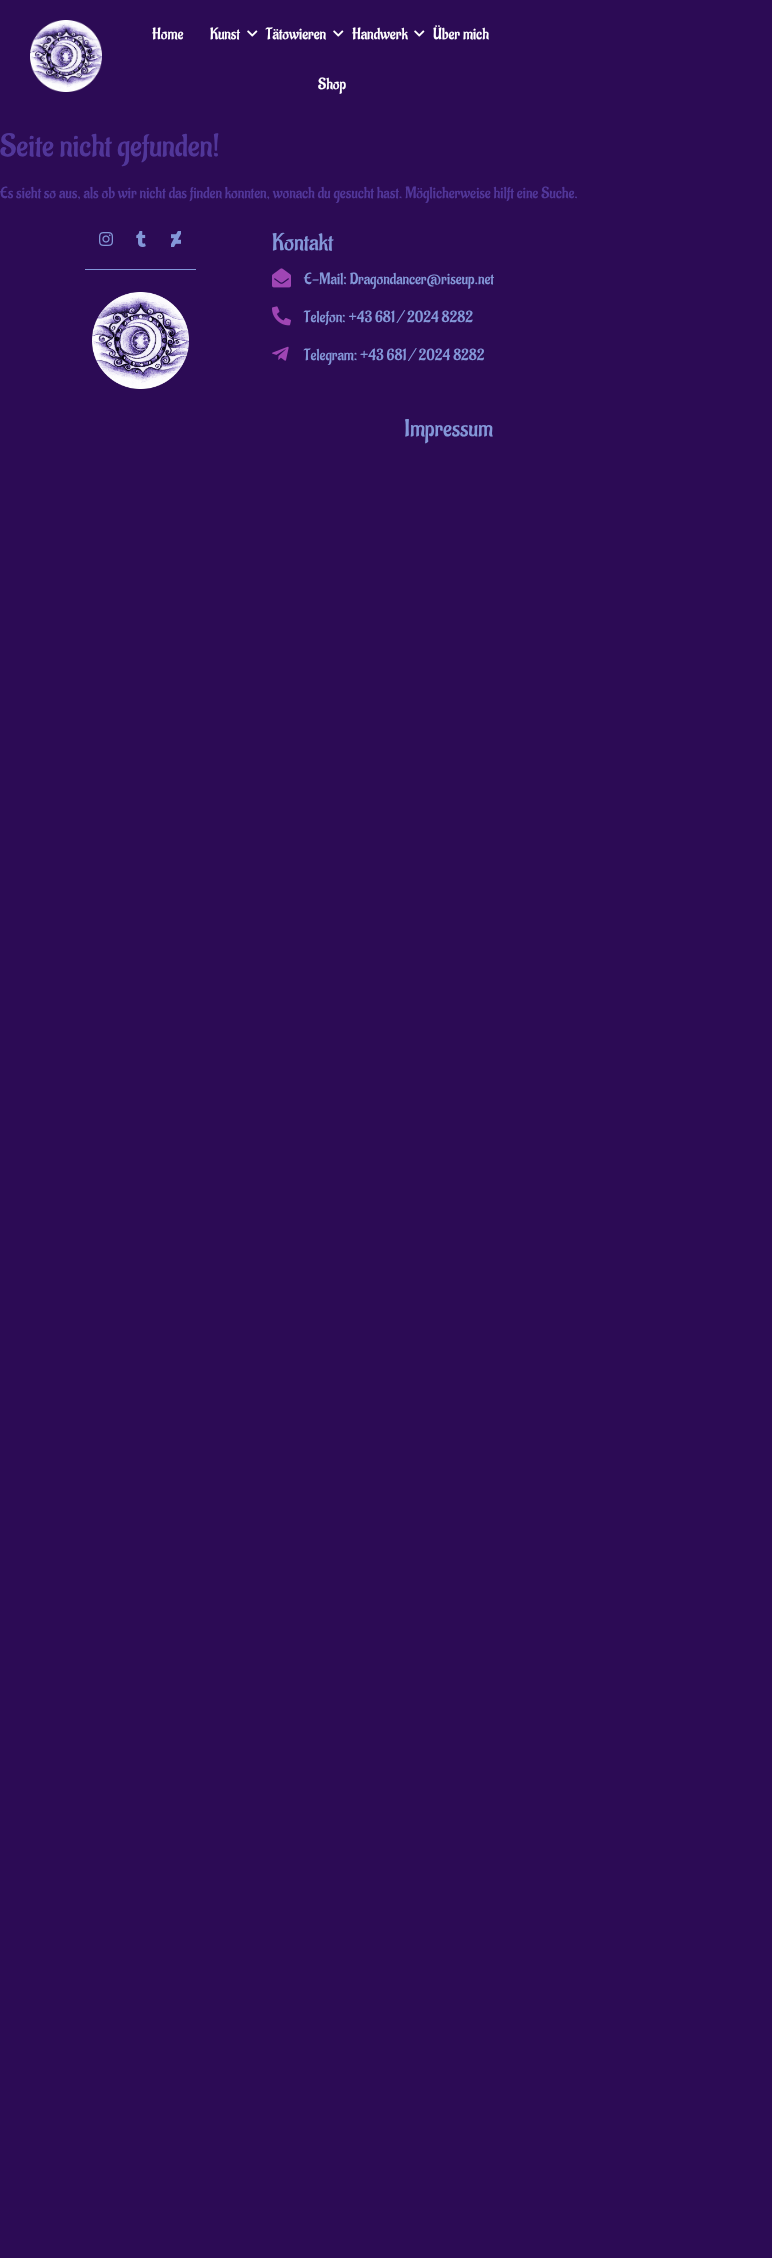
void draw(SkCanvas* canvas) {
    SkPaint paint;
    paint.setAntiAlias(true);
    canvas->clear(0xFF2C0B55);
    canvas->drawImageRect(SkImages::DeferredFromEncodedData(SkData::MakeFromFileName("img1.png")), SkRect::MakeXYWH(30, 20, 72, 72), SkSamplingOptions());
    SkFont font1(fontMgr->matchFamilyStyle("Aladin", SkFontStyle::Normal()), 16);
    font1.setSubpixel(true);
    paint.setColor(0xFFFFFFFF);
    canvas->drawString("Home", 152, 39, font1, paint);
    canvas->drawString("Kunst", 210, 39, font1, paint);
    canvas->drawImageRect(SkImages::DeferredFromEncodedData(SkData::MakeFromFileName("img2.png")), SkRect::MakeXYWH(247, 30, 11, 7), SkSamplingOptions());
    canvas->drawString("Tätowieren", 266, 39, font1, paint);
    canvas->drawImageRect(SkImages::DeferredFromEncodedData(SkData::MakeFromFileName("img2.png")), SkRect::MakeXYWH(333, 30, 11, 7), SkSamplingOptions());
    canvas->drawString("Handwerk", 352, 39, font1, paint);
    canvas->drawImageRect(SkImages::DeferredFromEncodedData(SkData::MakeFromFileName("img2.png")), SkRect::MakeXYWH(414, 30, 11, 7), SkSamplingOptions());
    canvas->drawString("Über mich", 433, 39, font1, paint);
    canvas->drawString("Shop", 318, 89, font1, paint);
    SkFont font2(fontMgr->matchFamilyStyle("Aladin", SkFontStyle::Normal()), 32);
    font2.setSubpixel(true);
    paint.setColor(0xFF513699);
    canvas->drawString("Seite nicht gefunden!", 0, 156, font2, paint);
    canvas->drawString("Es sieht so aus, als ob wir nicht das finden konnten, wonach du gesucht hast. Möglicherweise hilft eine Suche.", 0, 198, font1, paint);
    canvas->drawImageRect(SkImages::DeferredFromEncodedData(SkData::MakeFromFileName("img3.png")), SkRect::MakeXYWH(99, 232, 14, 14), SkSamplingOptions());
    canvas->drawImageRect(SkImages::DeferredFromEncodedData(SkData::MakeFromFileName("img4.png")), SkRect::MakeXYWH(136, 231, 10, 16), SkSamplingOptions());
    canvas->drawImageRect(SkImages::DeferredFromEncodedData(SkData::MakeFromFileName("img5.png")), SkRect::MakeXYWH(171, 231, 10, 16), SkSamplingOptions());
    paint.setColor(0xFF8397D8);
    canvas->drawRect(SkRect::MakeXYWH(85, 269, 111, 1), paint);
    canvas->drawImageRect(SkImages::DeferredFromEncodedData(SkData::MakeFromFileName("img6.png")), SkRect::MakeXYWH(92, 292, 97, 97), SkSamplingOptions());
    SkFont font3(fontMgr->matchFamilyStyle("Aladin", SkFontStyle::Normal()), 24);
    font3.setSubpixel(true);
    canvas->drawString("Kontakt", 272, 250, font3, paint);
    canvas->drawImageRect(SkImages::DeferredFromEncodedData(SkData::MakeFromFileName("img7.png")), SkRect::MakeXYWH(272, 268, 19, 20), SkSamplingOptions());
    canvas->drawString("E-Mail: Dragondancer@riseup.net", 304, 284, font1, paint);
    canvas->drawImageRect(SkImages::DeferredFromEncodedData(SkData::MakeFromFileName("img8.png")), SkRect::MakeXYWH(272, 306, 19, 20), SkSamplingOptions());
    canvas->drawString("Telefon: +43 681 / 2024 8282", 304, 322, font1, paint);
    canvas->drawImageRect(SkImages::DeferredFromEncodedData(SkData::MakeFromFileName("img9.png")), SkRect::MakeXYWH(272, 346, 17, 15), SkSamplingOptions());
    canvas->drawString("Telegram: +43 681 / 2024 8282", 304, 360, font1, paint);
    canvas->drawString("Impressum", 404, 436, font3, paint);
}
